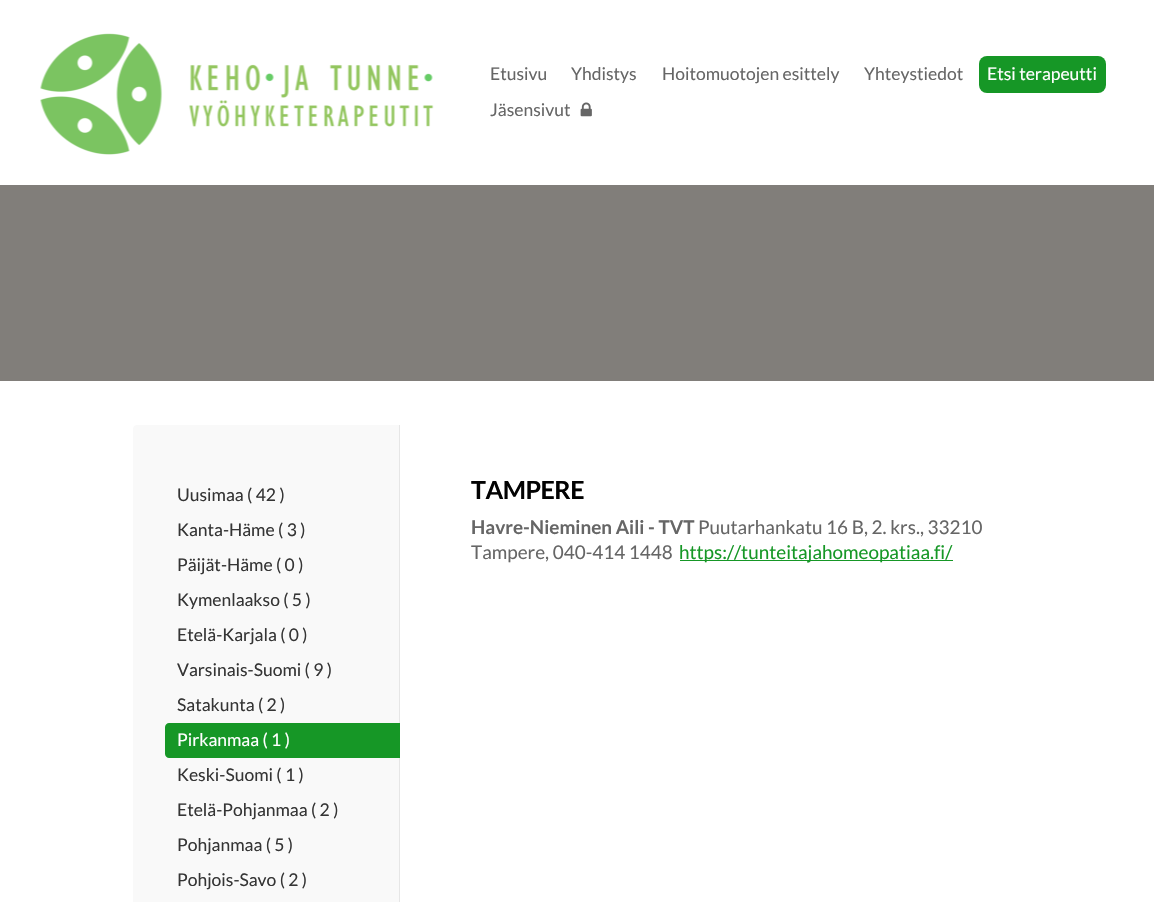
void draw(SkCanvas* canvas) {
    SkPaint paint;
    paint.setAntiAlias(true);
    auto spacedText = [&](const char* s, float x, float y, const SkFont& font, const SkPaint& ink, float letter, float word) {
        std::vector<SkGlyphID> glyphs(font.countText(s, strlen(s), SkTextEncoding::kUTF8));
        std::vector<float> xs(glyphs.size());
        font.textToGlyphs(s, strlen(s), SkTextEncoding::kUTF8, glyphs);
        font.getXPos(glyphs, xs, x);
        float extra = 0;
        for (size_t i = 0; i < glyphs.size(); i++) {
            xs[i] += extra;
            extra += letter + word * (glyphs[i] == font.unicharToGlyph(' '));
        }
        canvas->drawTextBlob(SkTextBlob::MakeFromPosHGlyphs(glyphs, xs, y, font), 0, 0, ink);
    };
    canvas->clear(0xFFFFFFFF);
    canvas->drawImageRect(SkImages::DeferredFromEncodedData(SkData::MakeFromFileName("img1.png")), SkRect::MakeXYWH(40, 33, 394, 122), SkSamplingOptions());
    SkFont font1(fontMgr->matchFamilyStyle("Lato", SkFontStyle::Normal()), 17.5f);
    font1.setSubpixel(true);
    paint.setColor(0xFF666666);
    canvas->drawString("Etusivu", 490, 80, font1, paint);
    canvas->drawString("Yhdistys", 571, 80, font1, paint);
    canvas->drawString("Hoitomuotojen esittely", 662, 80, font1, paint);
    canvas->drawString("Yhteystiedot", 864, 80, font1, paint);
    paint.setColor(0xFF169726);
    canvas->drawRoundRect(SkRect::MakeXYWH(979, 56, 127, 37), 8, 8, paint);
    paint.setColor(0xFFFFFFFF);
    canvas->drawString("Etsi terapeutti", 987, 80, font1, paint);
    paint.setColor(0xFF666666);
    canvas->drawString("Jäsensivut", 490, 116, font1, paint);
    canvas->drawImageRect(SkImages::DeferredFromEncodedData(SkData::MakeFromFileName("img2.png")), SkRect::MakeXYWH(580, 102, 12, 15), SkSamplingOptions());
    paint.setColor(0xFF817E7A);
    canvas->drawRect(SkRect::MakeXYWH(0, 185, 1154, 196), paint);
    paint.setColor(0xFFF9F9F9);
    canvas->drawPath(SkPathBuilder().moveTo(137, 425).lineTo(400, 425).lineTo(400, 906).lineTo(133, 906).lineTo(133, 429).cubicTo(133, 427, 135, 425, 137, 425).close().detach(), paint);
    paint.setColor(0xFFE6E6E6);
    canvas->drawRect(SkRect::MakeXYWH(399, 425, 1, 477), paint);
    paint.setColor(0xFF353535);
    canvas->drawString("Uusimaa ( 42 )", 177, 501, font1, paint);
    canvas->drawString("Kanta-Häme ( 3 )", 177, 536, font1, paint);
    canvas->drawString("Päijät-Häme ( 0 )", 177, 571, font1, paint);
    canvas->drawString("Kymenlaakso ( 5 )", 177, 606, font1, paint);
    canvas->drawString("Etelä-Karjala ( 0 )", 177, 641, font1, paint);
    canvas->drawString("Varsinais-Suomi ( 9 )", 177, 676, font1, paint);
    canvas->drawString("Satakunta ( 2 )", 177, 711, font1, paint);
    paint.setColor(0xFF169726);
    canvas->drawPath(SkPathBuilder().moveTo(169, 723).lineTo(400, 723).lineTo(400, 758).lineTo(169, 758).cubicTo(167, 758, 165, 756, 165, 754).lineTo(165, 727).cubicTo(165, 725, 167, 723, 169, 723).close().detach(), paint);
    paint.setColor(0xFFFFFFFF);
    canvas->drawString("Pirkanmaa ( 1 )", 177, 746, font1, paint);
    paint.setColor(0xFF353535);
    canvas->drawString("Keski-Suomi ( 1 )", 177, 781, font1, paint);
    canvas->drawString("Etelä-Pohjanmaa ( 2 )", 177, 816, font1, paint);
    canvas->drawString("Pohjanmaa ( 5 )", 177, 851, font1, paint);
    canvas->drawString("Pohjois-Savo ( 2 )", 177, 886, font1, paint);
    SkFont font2(fontMgr->matchFamilyStyle("Lato", SkFontStyle::Bold()), 25);
    font2.setSubpixel(true);
    paint.setColor(0xFF020202);
    spacedText("TAMPERE", 471, 499, font2, paint, -0.5f, 0);
    SkFont font3(fontMgr->matchFamilyStyle("Lato", SkFontStyle::Bold()), 18.9f);
    font3.setSubpixel(true);
    paint.setColor(0xFF666666);
    canvas->drawString("Havre-Nieminen Aili - TVT", 471, 534, font3, paint);
    SkFont font4(fontMgr->matchFamilyStyle("Lato", SkFontStyle::Normal()), 18.9f);
    font4.setSubpixel(true);
    canvas->drawString("Puutarhankatu 16 B, 2. krs., 33210", 698, 534, font4, paint);
    canvas->drawString("Tampere, 040-414 1448", 471, 559, font4, paint);
    paint.setColor(0xFF169726);
    canvas->drawRect(SkRect::MakeXYWH(680, 560, 273, 1), paint);
    canvas->drawString("https://tunteitajahomeopatiaa.fi/", 679, 559, font4, paint);
}
